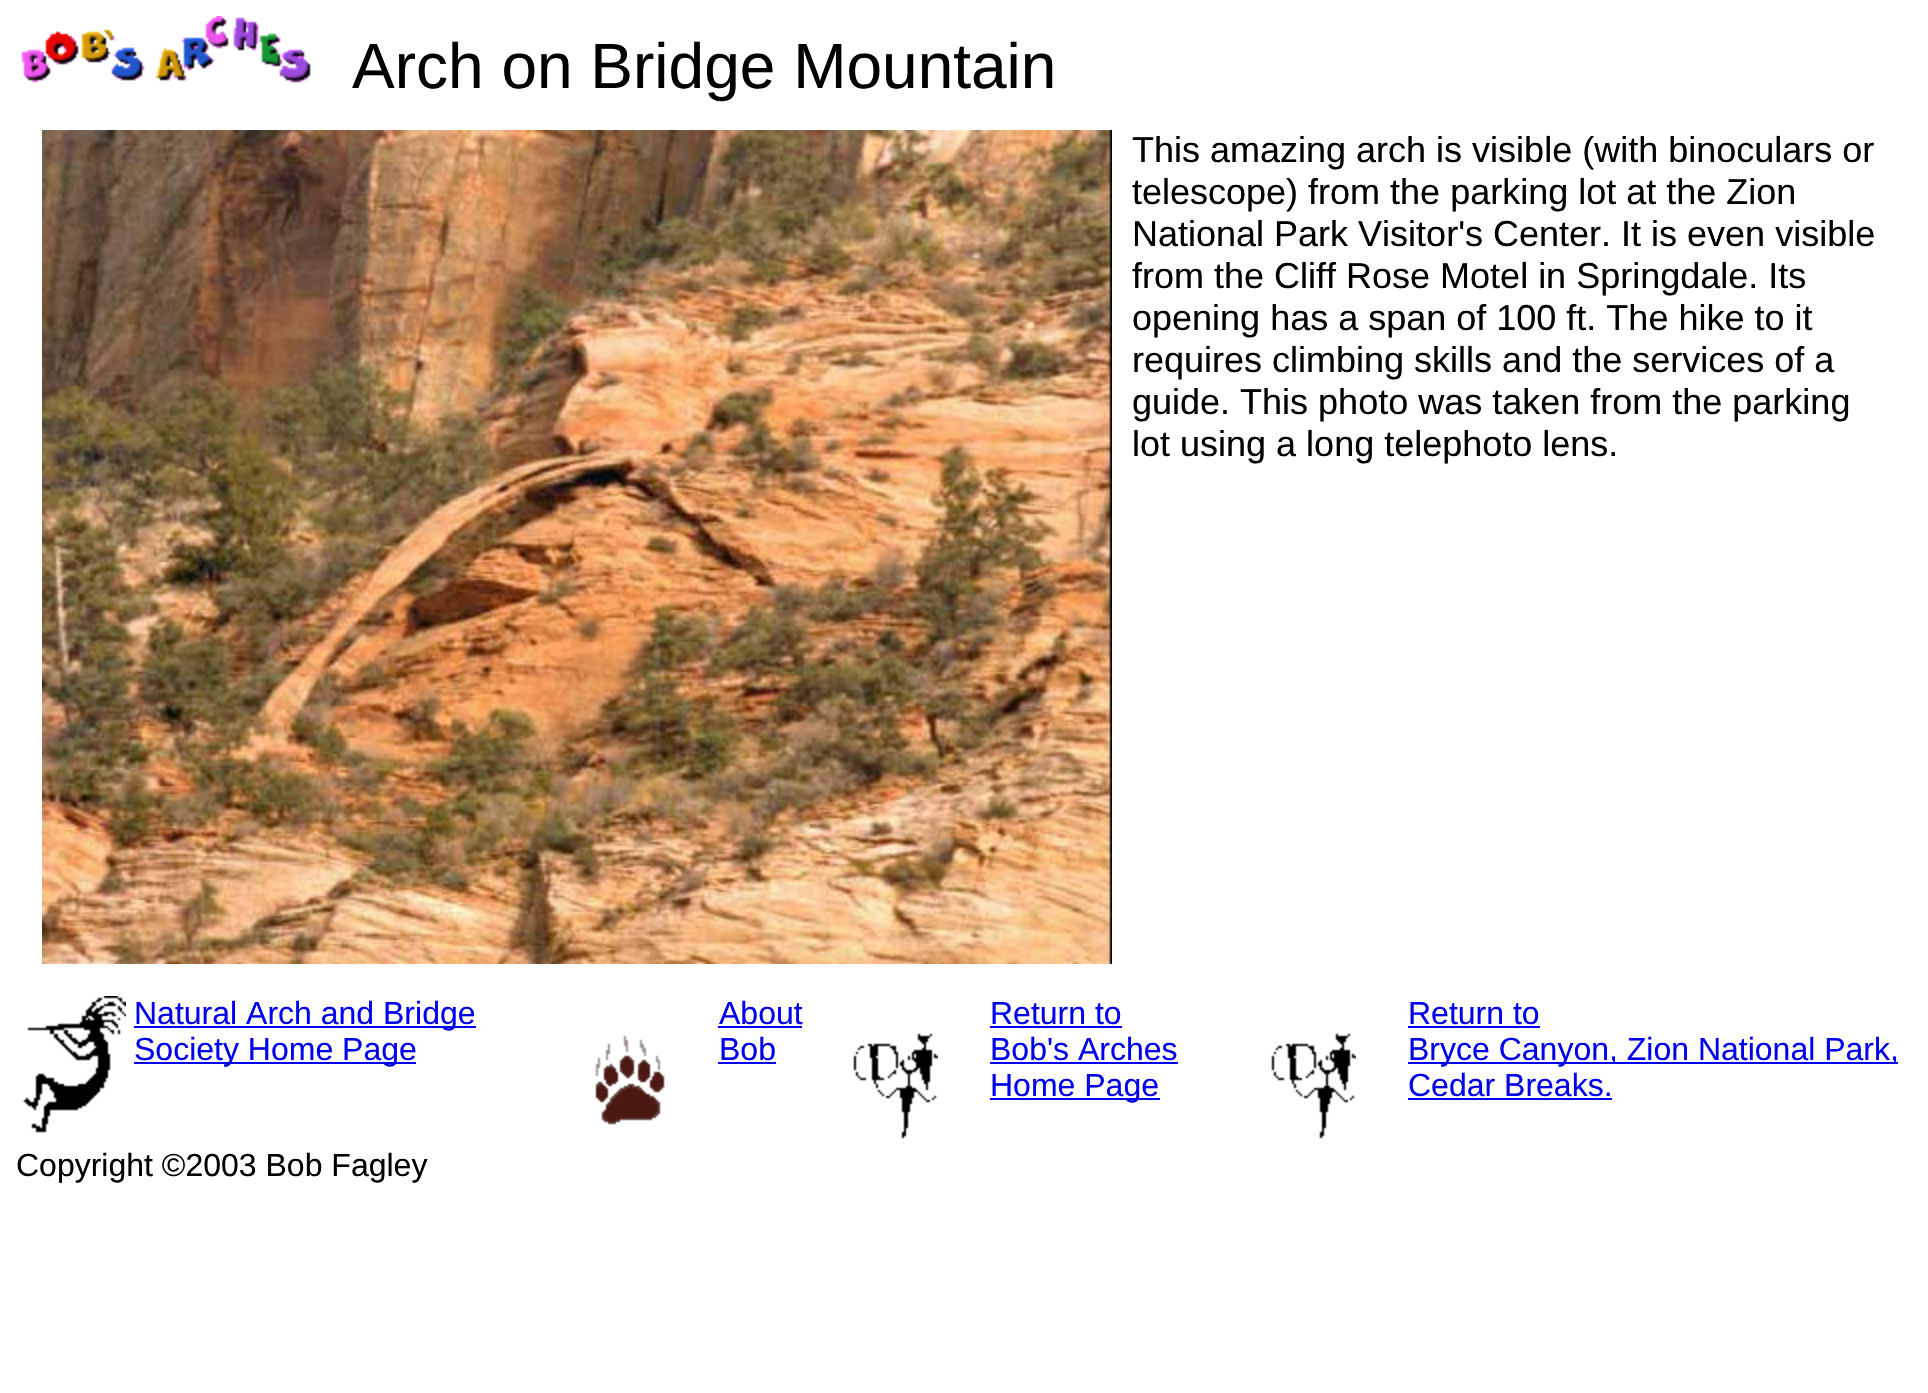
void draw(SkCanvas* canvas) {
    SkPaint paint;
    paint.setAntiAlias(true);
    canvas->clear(0xFFFFFFFF);
    canvas->drawImageRect(SkImages::DeferredFromEncodedData(SkData::MakeFromFileName("img1.png")), SkRect::MakeXYWH(21, 16, 290, 67), SkSamplingOptions());
    SkFont font1(fontMgr->matchFamilyStyle("Liberation Sans", SkFontStyle::Normal()), 64);
    font1.setSubpixel(true);
    paint.setColor(0xFF000000);
    canvas->drawString("Arch on Bridge Mountain", 352, 88, font1, paint);
    canvas->drawImageRect(SkImages::DeferredFromEncodedData(SkData::MakeFromFileName("img2.png")), SkRect::MakeXYWH(42, 130, 1070, 834), SkSamplingOptions());
    SkFont font2(fontMgr->matchFamilyStyle("Liberation Sans", SkFontStyle::Normal()), 36);
    font2.setSubpixel(true);
    canvas->drawString("This amazing arch is visible (with binoculars or", 1132, 162, font2, paint);
    canvas->drawString("telescope) from the parking lot at the Zion", 1132, 204, font2, paint);
    canvas->drawString("National Park Visitor's Center. It is even visible", 1132, 246, font2, paint);
    canvas->drawString("from the Cliff Rose Motel in Springdale. Its", 1132, 288, font2, paint);
    canvas->drawString("opening has a span of 100 ft. The hike to it", 1132, 330, font2, paint);
    canvas->drawString("requires climbing skills and the services of a", 1132, 372, font2, paint);
    canvas->drawString("guide. This photo was taken from the parking", 1132, 414, font2, paint);
    canvas->drawString("lot using a long telephoto lens.", 1132, 456, font2, paint);
    canvas->drawImageRect(SkImages::DeferredFromEncodedData(SkData::MakeFromFileName("img3.png")), SkRect::MakeXYWH(23, 996, 103, 137), SkSamplingOptions());
    paint.setColor(0xFF0000EE);
    canvas->drawRect(SkRect::MakeXYWH(134, 1026, 342, 2), paint);
    SkFont font3(fontMgr->matchFamilyStyle("Liberation Sans", SkFontStyle::Normal()), 32);
    font3.setSubpixel(true);
    canvas->drawString("Natural Arch and Bridge", 134, 1024, font3, paint);
    canvas->drawRect(SkRect::MakeXYWH(134, 1062, 282, 2), paint);
    canvas->drawString("Society Home Page", 134, 1060, font3, paint);
    canvas->drawImageRect(SkImages::DeferredFromEncodedData(SkData::MakeFromFileName("img4.png")), SkRect::MakeXYWH(595, 1035, 70, 90), SkSamplingOptions());
    canvas->drawString("About", 719, 1024, font3, paint);
    canvas->drawRect(SkRect::MakeXYWH(718, 1026, 84, 2), paint);
    canvas->drawString("Bob", 719, 1060, font3, paint);
    canvas->drawRect(SkRect::MakeXYWH(718, 1062, 58, 2), paint);
    canvas->drawImageRect(SkImages::DeferredFromEncodedData(SkData::MakeFromFileName("img5.png")), SkRect::MakeXYWH(853, 1033, 85, 106), SkSamplingOptions());
    canvas->drawString("Return to", 990, 1024, font3, paint);
    canvas->drawRect(SkRect::MakeXYWH(990, 1026, 132, 2), paint);
    canvas->drawString("Bob's Arches", 990, 1060, font3, paint);
    canvas->drawRect(SkRect::MakeXYWH(990, 1062, 188, 2), paint);
    canvas->drawRect(SkRect::MakeXYWH(990, 1098, 170, 2), paint);
    canvas->drawString("Home Page", 990, 1096, font3, paint);
    canvas->drawImageRect(SkImages::DeferredFromEncodedData(SkData::MakeFromFileName("img5.png")), SkRect::MakeXYWH(1271, 1033, 85, 106), SkSamplingOptions());
    canvas->drawString("Return to", 1408, 1024, font3, paint);
    canvas->drawRect(SkRect::MakeXYWH(1408, 1026, 132, 2), paint);
    canvas->drawRect(SkRect::MakeXYWH(1408, 1062, 490, 2), paint);
    canvas->drawString("Bryce Canyon, Zion National Park,", 1408, 1060, font3, paint);
    canvas->drawString("Cedar Breaks.", 1408, 1096, font3, paint);
    canvas->drawRect(SkRect::MakeXYWH(1408, 1098, 204, 2), paint);
    paint.setColor(0xFF000000);
    canvas->drawString("Copyright ©2003 Bob Fagley", 16, 1176, font3, paint);
}
